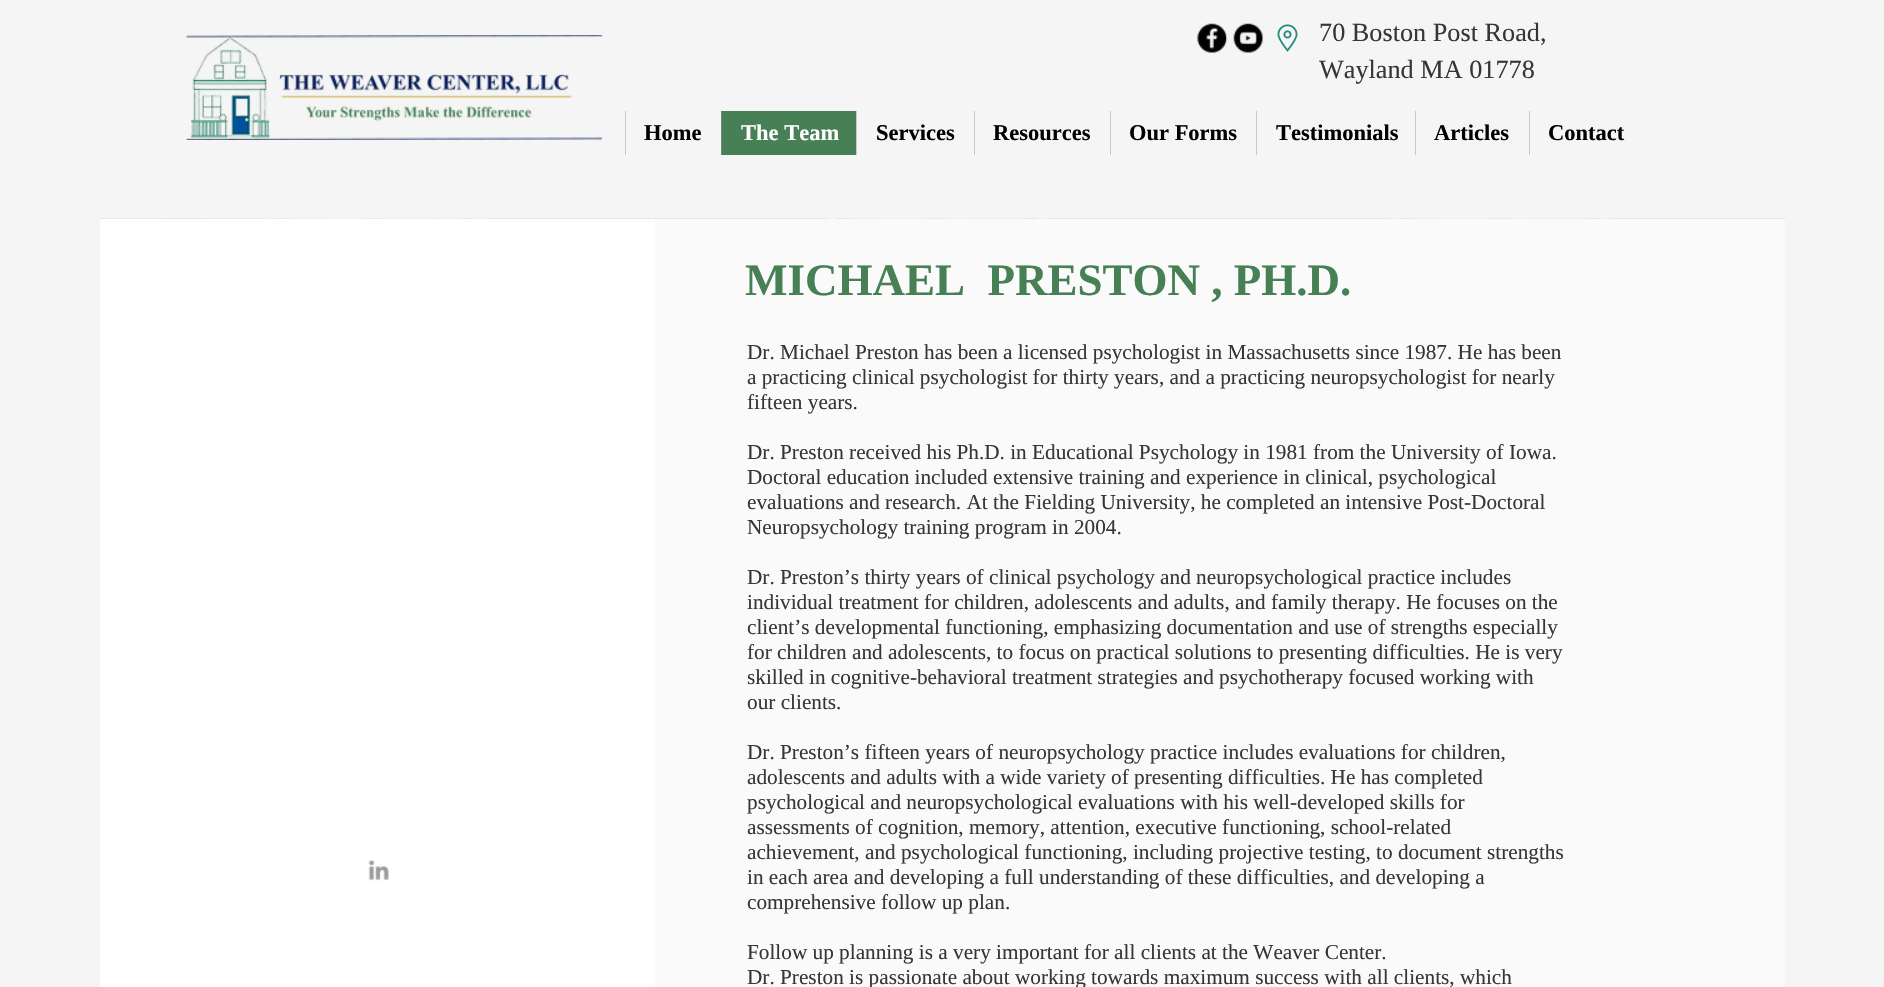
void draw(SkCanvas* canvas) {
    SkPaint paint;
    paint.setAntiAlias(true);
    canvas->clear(0xFFF5F5F5);
    canvas->drawImageRect(SkImages::DeferredFromEncodedData(SkData::MakeFromFileName("img1.png")), SkRect::MakeXYWH(186, 35, 417, 105), SkSamplingOptions());
    canvas->drawImageRect(SkImages::DeferredFromEncodedData(SkData::MakeFromFileName("img2.png")), SkRect::MakeXYWH(1197, 23, 30, 30), SkSamplingOptions());
    canvas->drawImageRect(SkImages::DeferredFromEncodedData(SkData::MakeFromFileName("img3.png")), SkRect::MakeXYWH(1233, 23, 30, 30), SkSamplingOptions());
    canvas->drawImageRect(SkImages::DeferredFromEncodedData(SkData::MakeFromFileName("img4.png")), SkRect::MakeXYWH(1277, 24, 21, 28), SkSamplingOptions());
    SkFont font1(fontMgr->matchFamilyStyle("Liberation Serif", SkFontStyle::Normal()), 26.25f);
    font1.setSubpixel(true);
    paint.setColor(0xFF363636);
    canvas->drawString("70 Boston Post Road,", 1319, 41, font1, paint);
    canvas->drawString("Wayland MA 01778", 1319, 78, font1, paint);
    paint.setColor(0xFFC8C8C8);
    canvas->drawRect(SkRect::MakeXYWH(625, 111, 1, 44), paint);
    SkFont font2(fontMgr->matchFamilyStyle("Liberation Serif", SkFontStyle::Bold()), 22.5f);
    font2.setSubpixel(true);
    paint.setColor(0xFF000000);
    canvas->drawString("Home", 644, 140, font2, paint);
    paint.setColor(0xFF468054);
    canvas->drawRect(SkRect::MakeXYWH(722, 111, 134, 44), paint);
    paint.setColor(0xFF6A8971);
    canvas->drawRect(SkRect::MakeXYWH(721, 111, 1, 44), paint);
    paint.setColor(0xFFFFFFFF);
    canvas->drawString("The Team", 741, 140, font2, paint);
    paint.setColor(0xFFC8C8C8);
    canvas->drawRect(SkRect::MakeXYWH(856, 111, 1, 44), paint);
    paint.setColor(0xFF000000);
    canvas->drawString("Services", 876, 140, font2, paint);
    paint.setColor(0xFFC8C8C8);
    canvas->drawRect(SkRect::MakeXYWH(974, 111, 1, 44), paint);
    paint.setColor(0xFF000000);
    canvas->drawString("Resources", 993, 140, font2, paint);
    paint.setColor(0xFFC8C8C8);
    canvas->drawRect(SkRect::MakeXYWH(1110, 111, 1, 44), paint);
    paint.setColor(0xFF000000);
    canvas->drawString("Our Forms", 1129, 140, font2, paint);
    paint.setColor(0xFFC8C8C8);
    canvas->drawRect(SkRect::MakeXYWH(1256, 111, 1, 44), paint);
    paint.setColor(0xFF000000);
    canvas->drawString("Testimonials", 1276, 140, font2, paint);
    paint.setColor(0xFFC8C8C8);
    canvas->drawRect(SkRect::MakeXYWH(1415, 111, 1, 44), paint);
    paint.setColor(0xFF000000);
    canvas->drawString("Articles", 1434, 140, font2, paint);
    paint.setColor(0xFFC8C8C8);
    canvas->drawRect(SkRect::MakeXYWH(1529, 111, 1, 44), paint);
    paint.setColor(0xFF000000);
    canvas->drawString("Contact", 1548, 140, font2, paint);
    canvas->drawImageRect(SkImages::DeferredFromEncodedData(SkData::MakeFromFileName("img5.png")), SkRect::MakeXYWH(100, 218, 1685, 1), SkSamplingOptions());
    paint.setColor(0xFFFFFFFF);
    canvas->drawRect(SkRect::MakeXYWH(100, 219, 555, 768), paint);
    canvas->drawImageRect(SkImages::DeferredFromEncodedData(SkData::MakeFromFileName("img6.png")), SkRect::MakeXYWH(368, 860, 21, 21), SkSamplingOptions());
    paint.setColor(0xFFFAFAFA);
    canvas->drawRect(SkRect::MakeXYWH(655, 219, 1130, 768), paint);
    SkFont font3(fontMgr->matchFamilyStyle("Liberation Serif", SkFontStyle::Bold()), 45);
    font3.setSubpixel(true);
    paint.setColor(0xFF468054);
    canvas->drawString("MICHAEL  PRESTON , PH.D.", 745, 295, font3, paint);
    SkFont font4(fontMgr->matchFamilyStyle("Liberation Serif", SkFontStyle::Normal()), 21.25f);
    font4.setSubpixel(true);
    paint.setColor(0xFF363636);
    canvas->drawString("Dr. Michael Preston has been a licensed psychologist in Massachusetts since 1987. He has been", 747, 359, font4, paint);
    canvas->drawString("a practicing clinical psychologist for thirty years, and a practicing neuropsychologist for nearly", 747, 384, font4, paint);
    canvas->drawString("fifteen years.", 747, 409, font4, paint);
    canvas->drawString("Dr. Preston received his Ph.D. in Educational Psychology in 1981 from the University of Iowa.", 747, 459, font4, paint);
    canvas->drawString("Doctoral education included extensive training and experience in clinical, psychological", 747, 484, font4, paint);
    canvas->drawString("evaluations and research. At the Fielding University, he completed an intensive Post-Doctoral", 747, 509, font4, paint);
    canvas->drawString("Neuropsychology training program in 2004.", 747, 534, font4, paint);
    canvas->drawString("Dr. Preston’s thirty years of clinical psychology and neuropsychological practice includes", 747, 584, font4, paint);
    canvas->drawString("individual treatment for children, adolescents and adults, and family therapy. He focuses on the", 747, 609, font4, paint);
    canvas->drawString("client’s developmental functioning, emphasizing documentation and use of strengths especially", 747, 634, font4, paint);
    canvas->drawString("for children and adolescents, to focus on practical solutions to presenting difficulties. He is very", 747, 659, font4, paint);
    canvas->drawString("skilled in cognitive-behavioral treatment strategies and psychotherapy focused working with", 747, 684, font4, paint);
    canvas->drawString("our clients.", 747, 709, font4, paint);
    canvas->drawString("Dr. Preston’s fifteen years of neuropsychology practice includes evaluations for children,", 747, 759, font4, paint);
    canvas->drawString("adolescents and adults with a wide variety of presenting difficulties. He has completed", 747, 784, font4, paint);
    canvas->drawString("psychological and neuropsychological evaluations with his well-developed skills for", 747, 809, font4, paint);
    canvas->drawString("assessments of cognition, memory, attention, executive functioning, school-related", 747, 834, font4, paint);
    canvas->drawString("achievement, and psychological functioning, including projective testing, to document strengths", 747, 859, font4, paint);
    canvas->drawString("in each area and developing a full understanding of these difficulties, and developing a", 747, 884, font4, paint);
    canvas->drawString("comprehensive follow up plan.", 747, 909, font4, paint);
    canvas->drawString("Follow up planning is a very important for all clients at the Weaver Center.", 747, 959, font4, paint);
    canvas->drawString("Dr. Preston is passionate about working towards maximum success with all clients, which", 747, 984, font4, paint);
}
